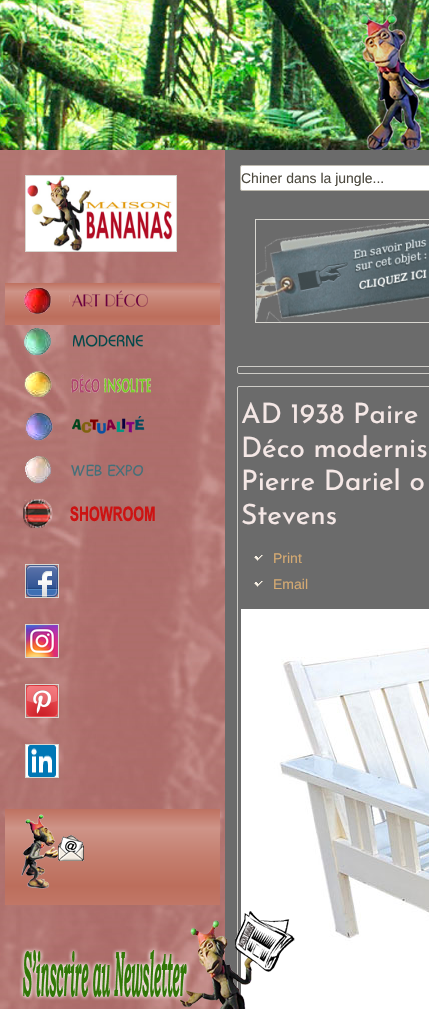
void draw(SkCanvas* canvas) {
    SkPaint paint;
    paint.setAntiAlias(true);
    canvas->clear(0xFFFFFFFF);
    canvas->drawImageRect(SkImages::DeferredFromEncodedData(SkData::MakeFromFileName("img1.png")), SkRect::MakeXYWH(0, 0, 429, 150), SkSamplingOptions());
    paint.setColor(0x26000000);
    paint.setMaskFilter(SkMaskFilter::MakeBlur(kNormal_SkBlurStyle, 1.5f));
    canvas->drawRect(SkRect::MakeXYWH(-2, 148, 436, 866), paint);
    paint.setMaskFilter(nullptr);
    paint.setColor(0xFF6B6B6B);
    canvas->drawRect(SkRect::MakeXYWH(225, 150, 204, 845), paint);
    canvas->drawImageRect(SkImages::DeferredFromEncodedData(SkData::MakeFromFileName("img2.png")), SkRect::MakeXYWH(0, 150, 225, 859), SkSamplingOptions());
    paint.setStyle(SkPaint::kStroke_Style);
    paint.setStrokeWidth(1);
    paint.setColor(0xFFD9D7D1);
    canvas->drawRect(SkRect::MakeXYWH(25.5f, 175.5f, 151, 76), paint);
    canvas->drawImageRect(SkImages::DeferredFromEncodedData(SkData::MakeFromFileName("img3.png")), SkRect::MakeXYWH(26, 176, 150, 75), SkSamplingOptions());
    paint.setStyle(SkPaint::kFill_Style);
    {
        const SkColor colors[] = {0xFFBE7160, 0xFFCE9488, 0xFFC47E6E, 0xFFBC6E5C, 0xFFC17767};
        const float stops[] = {0, 0.2f, 0.5f, 0.8f, 1};
        const SkPoint ends[] = {{113, 283}, {113, 325}};
        paint.setShader(SkGradientShader::MakeLinear(ends, colors, stops, 5, SkTileMode::kClamp));
        paint.setAlpha(255);
    }
    canvas->drawRect(SkRect::MakeXYWH(5, 283, 215, 42), paint);
    canvas->drawImageRect(SkImages::DeferredFromEncodedData(SkData::MakeFromFileName("img4.png")), SkRect::MakeXYWH(23, 287, 125, 27), SkSamplingOptions());
    canvas->drawImageRect(SkImages::DeferredFromEncodedData(SkData::MakeFromFileName("img5.png")), SkRect::MakeXYWH(23, 328, 120, 28), SkSamplingOptions());
    canvas->drawImageRect(SkImages::DeferredFromEncodedData(SkData::MakeFromFileName("img6.png")), SkRect::MakeXYWH(24, 371, 127, 27), SkSamplingOptions());
    canvas->drawImageRect(SkImages::DeferredFromEncodedData(SkData::MakeFromFileName("img7.png")), SkRect::MakeXYWH(25, 412, 120, 29), SkSamplingOptions());
    canvas->drawImageRect(SkImages::DeferredFromEncodedData(SkData::MakeFromFileName("img8.png")), SkRect::MakeXYWH(25, 456, 119, 28), SkSamplingOptions());
    canvas->drawImageRect(SkImages::DeferredFromEncodedData(SkData::MakeFromFileName("img9.png")), SkRect::MakeXYWH(23, 499, 132, 29), SkSamplingOptions());
    paint.setStyle(SkPaint::kStroke_Style);
    paint.setShader(nullptr);
    paint.setColor(0xFFD9D7D1);
    canvas->drawRect(SkRect::MakeXYWH(25.5f, 564.5f, 33, 33), paint);
    canvas->drawImageRect(SkImages::DeferredFromEncodedData(SkData::MakeFromFileName("img10.png")), SkRect::MakeXYWH(26, 565, 32, 32), SkSamplingOptions());
    canvas->drawRect(SkRect::MakeXYWH(25.5f, 624.5f, 33, 33), paint);
    canvas->drawImageRect(SkImages::DeferredFromEncodedData(SkData::MakeFromFileName("img11.png")), SkRect::MakeXYWH(26, 625, 32, 32), SkSamplingOptions());
    canvas->drawRect(SkRect::MakeXYWH(25.5f, 684.5f, 33, 33), paint);
    canvas->drawImageRect(SkImages::DeferredFromEncodedData(SkData::MakeFromFileName("img12.png")), SkRect::MakeXYWH(26, 685, 32, 32), SkSamplingOptions());
    canvas->drawRect(SkRect::MakeXYWH(25.5f, 744.5f, 33, 33), paint);
    canvas->drawImageRect(SkImages::DeferredFromEncodedData(SkData::MakeFromFileName("img13.png")), SkRect::MakeXYWH(26, 745, 32, 32), SkSamplingOptions());
    paint.setStyle(SkPaint::kFill_Style);
    {
        const SkColor colors[] = {0xFFBE7160, 0xFFCE9488, 0xFFC47E6E, 0xFFBC6E5C, 0xFFC17767};
        const float stops[] = {0, 0.2f, 0.5f, 0.8f, 1};
        const SkPoint ends[] = {{113, 809}, {113, 905}};
        paint.setShader(SkGradientShader::MakeLinear(ends, colors, stops, 5, SkTileMode::kClamp));
        paint.setAlpha(255);
    }
    canvas->drawRect(SkRect::MakeXYWH(5, 809, 215, 96), paint);
    canvas->drawImageRect(SkImages::DeferredFromEncodedData(SkData::MakeFromFileName("img14.png")), SkRect::MakeXYWH(21, 814, 63, 75), SkSamplingOptions());
    paint.setStyle(SkPaint::kStroke_Style);
    paint.setShader(nullptr);
    paint.setColor(0xFFCECCC7);
    canvas->drawRoundRect(SkRect::MakeXYWH(237.5f, 386.5f, 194, 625), 1.5f, 1.5f, paint);
    canvas->drawImageRect(SkImages::DeferredFromEncodedData(SkData::MakeFromFileName("img18.png")), SkRect::MakeXYWH(241, 609, 188, 400), SkSamplingOptions());
    canvas->drawImageRect(SkImages::DeferredFromEncodedData(SkData::MakeFromFileName("img15.png")), SkRect::MakeXYWH(19, 911, 276, 98), SkSamplingOptions());
    paint.setStyle(SkPaint::kFill_Style);
    paint.setColor(0xFFFFFFFF);
    canvas->drawRoundRect(SkRect::MakeXYWH(240.5f, 165.5f, 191, 25), 1.5f, 1.5f, paint);
    paint.setStyle(SkPaint::kStroke_Style);
    paint.setColor(0xFFBEBAAF);
    canvas->drawRoundRect(SkRect::MakeXYWH(240.5f, 165.5f, 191, 25), 1.5f, 1.5f, paint);
    SkFont font1(fontMgr->matchFamilyStyle("Liberation Sans", SkFontStyle::Normal()), 14);
    font1.setSubpixel(true);
    paint.setStyle(SkPaint::kFill_Style);
    paint.setColor(0xFF4D4A3F);
    canvas->drawString("Chiner dans la jungle...", 241, 183, font1, paint);
    paint.setStyle(SkPaint::kStroke_Style);
    paint.setColor(0xFFD9D7D1);
    canvas->drawRect(SkRect::MakeXYWH(255.5f, 219.5f, 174, 103), paint);
    canvas->drawImageRect(SkImages::DeferredFromEncodedData(SkData::MakeFromFileName("img16.png")), SkRect::MakeXYWH(256, 220, 173, 102), SkSamplingOptions());
    paint.setColor(0xFFCECCC7);
    canvas->drawRoundRect(SkRect::MakeXYWH(237.5f, 366.5f, 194, 7), 1.5f, 1.5f, paint);
    SkFont font2(fontMgr->matchFamilyStyle("Josefin Sans", SkFontStyle::Normal()), 28);
    font2.setSubpixel(true);
    paint.setStyle(SkPaint::kFill_Style);
    paint.setColor(0xFFF5E8E6);
    canvas->drawString("AD 1938 Paire", 241, 423, font2, paint);
    canvas->drawString("Déco modernis", 241, 457, font2, paint);
    canvas->drawString("Pierre Dariel o", 241, 490, font2, paint);
    canvas->drawString("Stevens", 241, 524, font2, paint);
    canvas->drawImageRect(SkImages::DeferredFromEncodedData(SkData::MakeFromFileName("img17.png")), SkRect::MakeXYWH(254, 555, 9, 6), SkSamplingOptions());
    paint.setColor(0xFFD5AA72);
    canvas->drawString("Print", 273, 563, font1, paint);
    canvas->drawImageRect(SkImages::DeferredFromEncodedData(SkData::MakeFromFileName("img17.png")), SkRect::MakeXYWH(254, 581, 9, 6), SkSamplingOptions());
    canvas->drawString("Email", 273, 589, font1, paint);
}
